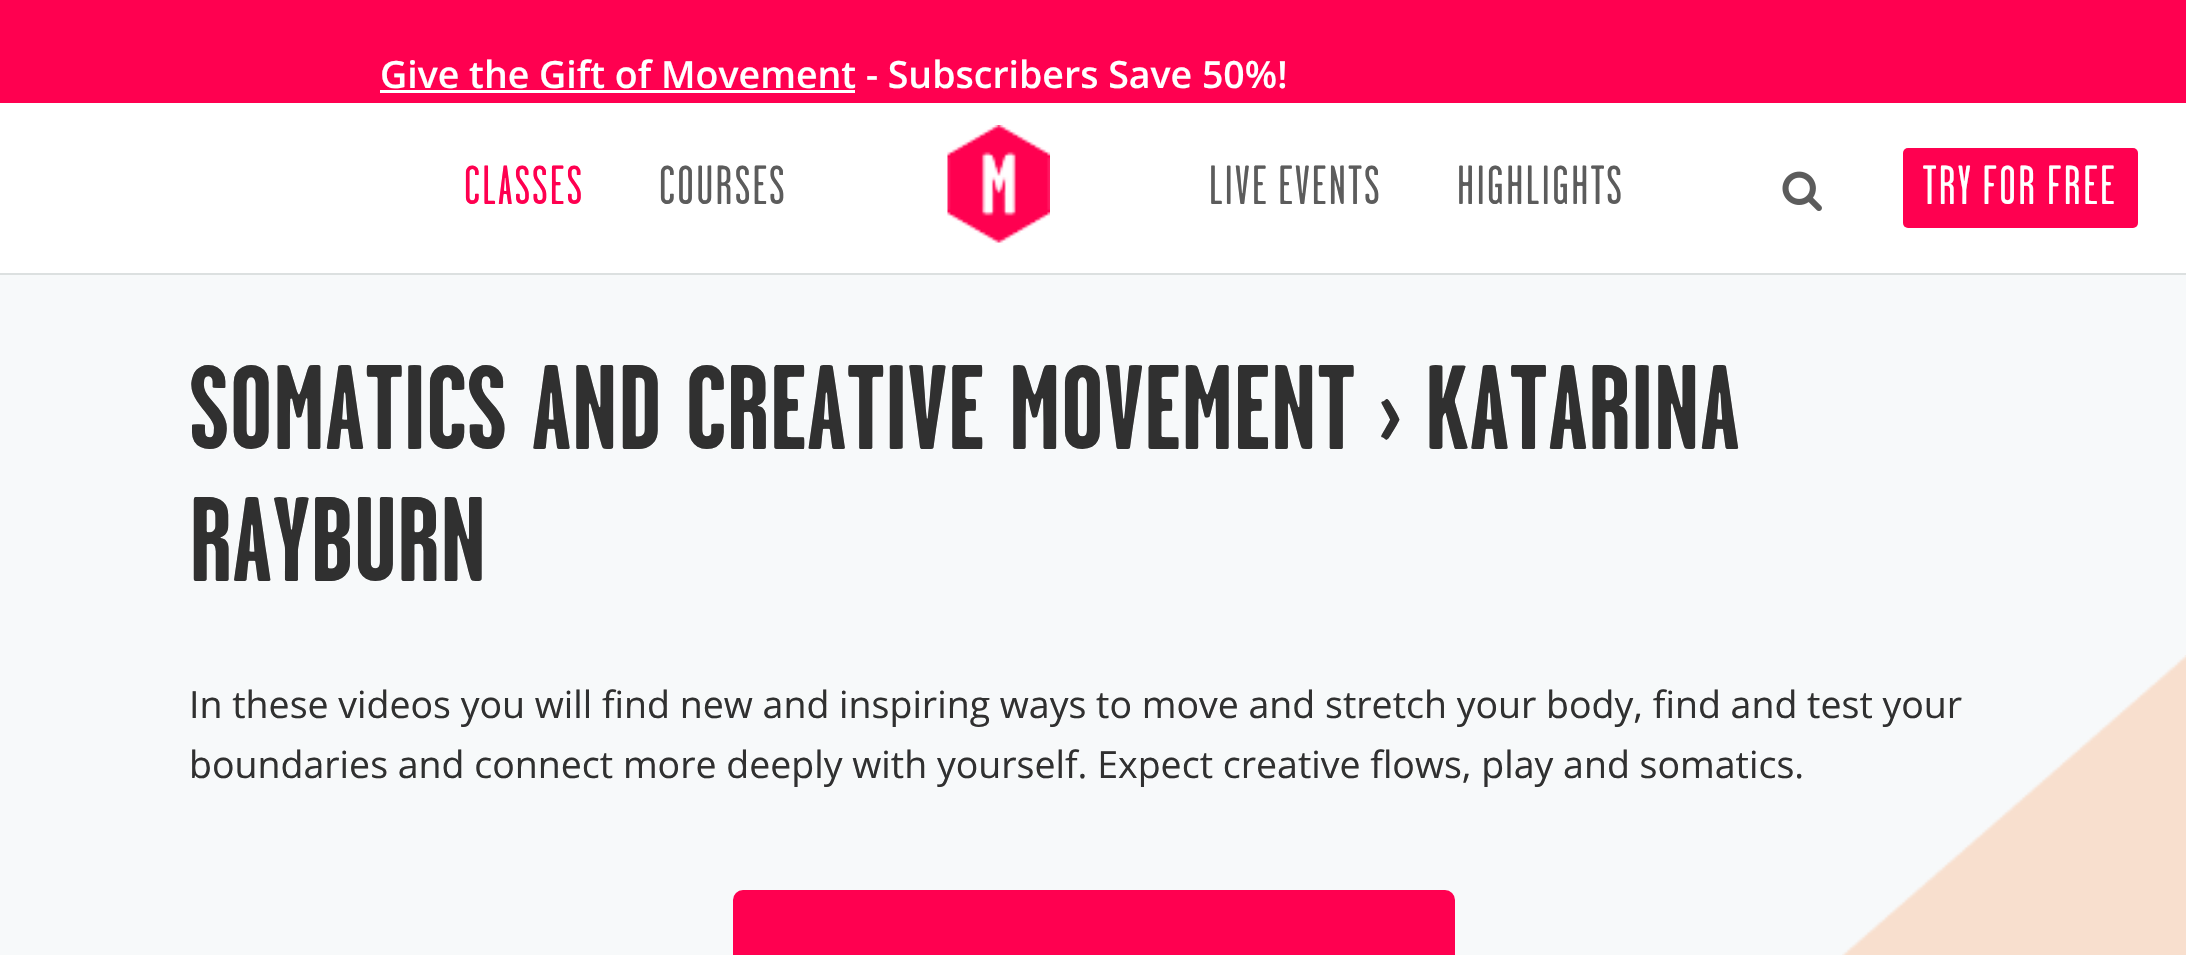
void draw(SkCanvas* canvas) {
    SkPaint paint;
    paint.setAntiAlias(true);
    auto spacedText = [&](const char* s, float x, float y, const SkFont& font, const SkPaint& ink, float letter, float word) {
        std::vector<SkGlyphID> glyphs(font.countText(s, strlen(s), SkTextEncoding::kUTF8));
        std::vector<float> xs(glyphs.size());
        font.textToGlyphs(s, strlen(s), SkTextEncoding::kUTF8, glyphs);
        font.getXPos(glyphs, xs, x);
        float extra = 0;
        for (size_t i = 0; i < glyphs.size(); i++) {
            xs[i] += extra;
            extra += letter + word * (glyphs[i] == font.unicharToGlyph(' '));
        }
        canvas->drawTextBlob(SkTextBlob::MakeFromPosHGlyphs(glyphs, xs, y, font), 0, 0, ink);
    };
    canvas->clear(0xFFFF0050);
    SkFont font1(fontMgr->matchFamilyStyle("Open Sans", SkFontStyle(600, SkFontStyle::kNormal_Width, SkFontStyle::kUpright_Slant)), 37.5f);
    font1.setSubpixel(true);
    paint.setColor(0xFFFFFFFF);
    canvas->drawString("Give the Gift of Movement - Subscribers Save 50%!", 380, 88, font1, paint);
    canvas->drawRect(SkRect::MakeXYWH(380, 90, 475, 3), paint);
    canvas->drawRect(SkRect::MakeXYWH(0, 103, 2186, 170), paint);
    paint.setColor(0xFFDCE0E0);
    canvas->drawRect(SkRect::MakeXYWH(0, 273, 2186, 2), paint);
    SkFont font2(fontMgr->matchFamilyStyle("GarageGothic", SkFontStyle::Normal()), 55);
    font2.setSubpixel(true);
    paint.setColor(0xFFFF0050);
    spacedText("CLASSES", 464, 204, font2, paint, 2.5f, 0);
    paint.setColor(0xFF5C5C5C);
    spacedText("COURSES", 659, 204, font2, paint, 2.5f, 0);
    canvas->drawImageRect(SkImages::DeferredFromEncodedData(SkData::MakeFromFileName("img1.png")), SkRect::MakeXYWH(947, 125, 103, 118), SkSamplingOptions());
    spacedText("LIVE EVENTS", 1209, 204, font2, paint, 2.5f, 0);
    spacedText("HIGHLIGHTS", 1457, 204, font2, paint, 2.5f, 0);
    canvas->drawImageRect(SkImages::DeferredFromEncodedData(SkData::MakeFromFileName("img2.png")), SkRect::MakeXYWH(1782, 171, 40, 40), SkSamplingOptions());
    paint.setColor(0xFFFF0050);
    canvas->drawRoundRect(SkRect::MakeXYWH(1903, 148, 235, 80), 5, 5, paint);
    paint.setColor(0xFFFFFFFF);
    spacedText("TRY FOR FREE", 1923, 204, font2, paint, 2.5f, 0);
    paint.setColor(0xFFF7F9FA);
    canvas->drawRect(SkRect::MakeXYWH(0, 275, 2186, 680), paint);
    canvas->drawImageRect(SkImages::DeferredFromEncodedData(SkData::MakeFromFileName("img3.png")), SkRect::MakeXYWH(1842, 655, 344, 300), SkSamplingOptions());
    SkFont font3(fontMgr->matchFamilyStyle("GarageGothic", SkFontStyle::Bold()), 120);
    font3.setSubpixel(true);
    paint.setColor(0xFF303030);
    canvas->drawString("SOMATICS AND CREATIVE MOVEMENT › KATARINA", 189, 449, font3, paint);
    canvas->drawString("RAYBURN", 189, 581, font3, paint);
    SkFont font4(fontMgr->matchFamilyStyle("Open Sans", SkFontStyle::Normal()), 37.5f);
    font4.setSubpixel(true);
    canvas->drawString("In these videos you will find new and inspiring ways to move and stretch your body, find and test your", 189, 718, font4, paint);
    canvas->drawString("boundaries and connect more deeply with yourself. Expect creative flows, play and somatics.", 189, 778, font4, paint);
    paint.setColor(0xFFFF0050);
    canvas->drawRoundRect(SkRect::MakeXYWH(734.5f, 891.5f, 719, 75), 8.5f, 8.5f, paint);
    paint.setStyle(SkPaint::kStroke_Style);
    paint.setStrokeWidth(3);
    canvas->drawRoundRect(SkRect::MakeXYWH(734.5f, 891.5f, 719, 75), 8.5f, 8.5f, paint);
}
